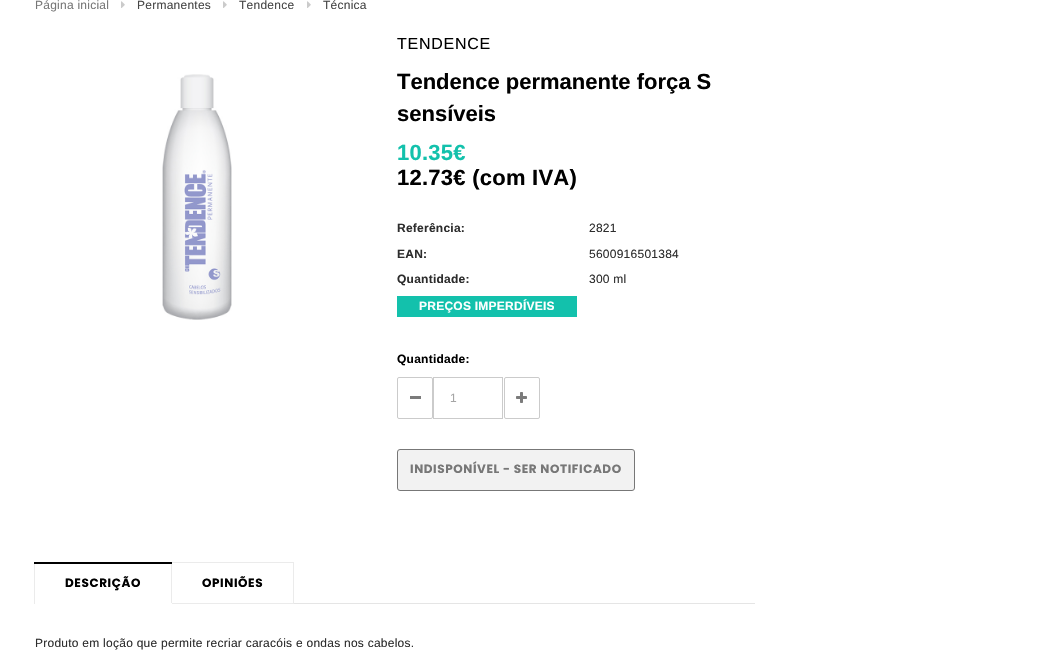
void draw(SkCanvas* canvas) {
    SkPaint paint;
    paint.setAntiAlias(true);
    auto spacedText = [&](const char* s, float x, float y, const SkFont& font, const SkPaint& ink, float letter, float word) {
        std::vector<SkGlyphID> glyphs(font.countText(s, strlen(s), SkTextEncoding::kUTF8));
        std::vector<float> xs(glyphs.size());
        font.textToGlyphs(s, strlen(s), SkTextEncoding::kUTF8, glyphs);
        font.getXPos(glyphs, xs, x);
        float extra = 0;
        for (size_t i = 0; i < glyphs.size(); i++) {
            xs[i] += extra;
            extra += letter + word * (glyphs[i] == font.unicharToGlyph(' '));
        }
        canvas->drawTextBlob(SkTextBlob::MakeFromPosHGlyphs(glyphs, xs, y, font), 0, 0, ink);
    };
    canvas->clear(0xFFFFFFFF);
    SkFont font1(fontMgr->matchFamilyStyle("Arimo", SkFontStyle::Normal()), 12);
    font1.setSubpixel(true);
    paint.setColor(0xFF777777);
    spacedText("Página inicial", 35, 9, font1, paint, 0.25f, 0);
    canvas->drawImageRect(SkImages::DeferredFromEncodedData(SkData::MakeFromFileName("img1.png")), SkRect::MakeXYWH(121, 1, 4, 7), SkSamplingOptions());
    paint.setColor(0xFF464646);
    spacedText("Permanentes", 137, 9, font1, paint, 0.25f, 0);
    canvas->drawImageRect(SkImages::DeferredFromEncodedData(SkData::MakeFromFileName("img1.png")), SkRect::MakeXYWH(223, 1, 4, 7), SkSamplingOptions());
    spacedText("Tendence", 239, 9, font1, paint, 0.25f, 0);
    canvas->drawImageRect(SkImages::DeferredFromEncodedData(SkData::MakeFromFileName("img1.png")), SkRect::MakeXYWH(307, 1, 4, 7), SkSamplingOptions());
    spacedText("Técnica", 323, 9, font1, paint, 0.25f, 0);
    canvas->drawImageRect(SkImages::DeferredFromEncodedData(SkData::MakeFromFileName("img2.png")), SkRect::MakeXYWH(162, 74, 70, 246), SkSamplingOptions());
    SkFont font2(fontMgr->matchFamilyStyle("Arimo", SkFontStyle::Normal()), 16);
    font2.setSubpixel(true);
    paint.setColor(0xFF000000);
    spacedText("TENDENCE", 397, 49, font2, paint, 0.75f, 0);
    SkFont font3(fontMgr->matchFamilyStyle("Arimo", SkFontStyle::Bold()), 22);
    font3.setSubpixel(true);
    canvas->drawString("Tendence permanente força S", 397, 89, font3, paint);
    canvas->drawString("sensíveis", 397, 121, font3, paint);
    paint.setColor(0xFF13C1AC);
    spacedText("10.35€", 397, 160, font3, paint, 0.25f, 0);
    paint.setColor(0xFF000000);
    spacedText("12.73€ (com IVA)", 397, 185, font3, paint, 0.25f, 0);
    SkFont font4(fontMgr->matchFamilyStyle("Arimo", SkFontStyle::Bold()), 12);
    font4.setSubpixel(true);
    paint.setColor(0xFF2D2D2D);
    spacedText("Referência:", 397, 232, font4, paint, 0.25f, 0);
    spacedText("2821", 589, 232, font1, paint, 0.25f, 0);
    spacedText("EAN:", 397, 258, font4, paint, 0.25f, 0);
    spacedText("5600916501384", 589, 258, font1, paint, 0.25f, 0);
    spacedText("Quantidade:", 397, 283, font4, paint, 0.25f, 0);
    spacedText("300 ml", 589, 283, font1, paint, 0.25f, 0);
    paint.setColor(0xFF13C1AC);
    canvas->drawRect(SkRect::MakeXYWH(397, 296, 180, 21), paint);
    paint.setColor(0xFFFFFFFF);
    spacedText("PREÇOS IMPERDÍVEIS", 419, 310, font4, paint, 0.25f, 0);
    paint.setColor(0xFF000000);
    spacedText("Quantidade:", 397, 363, font4, paint, 0.25f, 0);
    paint.setStyle(SkPaint::kStroke_Style);
    paint.setStrokeWidth(1);
    paint.setColor(0xFFCBCBCB);
    canvas->drawRoundRect(SkRect::MakeXYWH(397.5f, 377.5f, 35, 41), 1.5f, 1.5f, paint);
    paint.setStyle(SkPaint::kFill_Style);
    paint.setColor(0xFF7B7B7B);
    canvas->drawRect(SkRect::MakeXYWH(410, 396, 11, 3), paint);
    paint.setStyle(SkPaint::kStroke_Style);
    paint.setColor(0xFFCBCBCB);
    canvas->drawRect(SkRect::MakeXYWH(433.5f, 377.5f, 69, 41), paint);
    paint.setStyle(SkPaint::kFill_Style);
    paint.setColor(0xFFA5A5A5);
    canvas->drawString("1", 450, 402, font1, paint);
    paint.setStyle(SkPaint::kStroke_Style);
    paint.setColor(0xFFCBCBCB);
    canvas->drawRoundRect(SkRect::MakeXYWH(504.5f, 377.5f, 35, 41), 1.5f, 1.5f, paint);
    canvas->drawImageRect(SkImages::DeferredFromEncodedData(SkData::MakeFromFileName("img3.png")), SkRect::MakeXYWH(516, 392, 11, 11), SkSamplingOptions());
    paint.setStyle(SkPaint::kFill_Style);
    paint.setColor(0xFFF2F2F2);
    canvas->drawRoundRect(SkRect::MakeXYWH(397.5f, 449.5f, 237, 41), 2.5f, 2.5f, paint);
    paint.setStyle(SkPaint::kStroke_Style);
    paint.setColor(0xFF777777);
    canvas->drawRoundRect(SkRect::MakeXYWH(397.5f, 449.5f, 237, 41), 2.5f, 2.5f, paint);
    SkFont font5(fontMgr->matchFamilyStyle("Poppins", SkFontStyle::Bold()), 12);
    font5.setSubpixel(true);
    paint.setStyle(SkPaint::kFill_Style);
    spacedText("INDISPONÍVEL - SER NOTIFICADO", 410, 473, font5, paint, 0.6f, 0);
    paint.setStyle(SkPaint::kStroke_Style);
    paint.setColor(0xFFEBEBEB);
    canvas->drawRect(SkRect::MakeXYWH(171.5f, 562.5f, 122, 41), paint);
    paint.setStyle(SkPaint::kFill_Style);
    paint.setColor(0xFFFFFFFF);
    canvas->drawRect(SkRect::MakeXYWH(171, 603, 1, 1), paint);
    paint.setColor(0xFFEBEBEB);
    canvas->drawRect(SkRect::MakeXYWH(34, 562, 1, 42), paint);
    paint.setColor(0xFF000000);
    canvas->drawRect(SkRect::MakeXYWH(34, 562, 138, 2), paint);
    spacedText("DESCRIÇÃO", 65, 587, font5, paint, 0.6f, 0);
    spacedText("OPINIÕES", 202, 587, font5, paint, 0.6f, 0);
    paint.setColor(0xFFE5E5E5);
    canvas->drawRect(SkRect::MakeXYWH(294, 603, 461, 1), paint);
    paint.setColor(0xFF2D2D2D);
    spacedText("Produto em loção que permite recriar caracóis e ondas nos cabelos.", 35, 647, font1, paint, 0.25f, 0);
}
